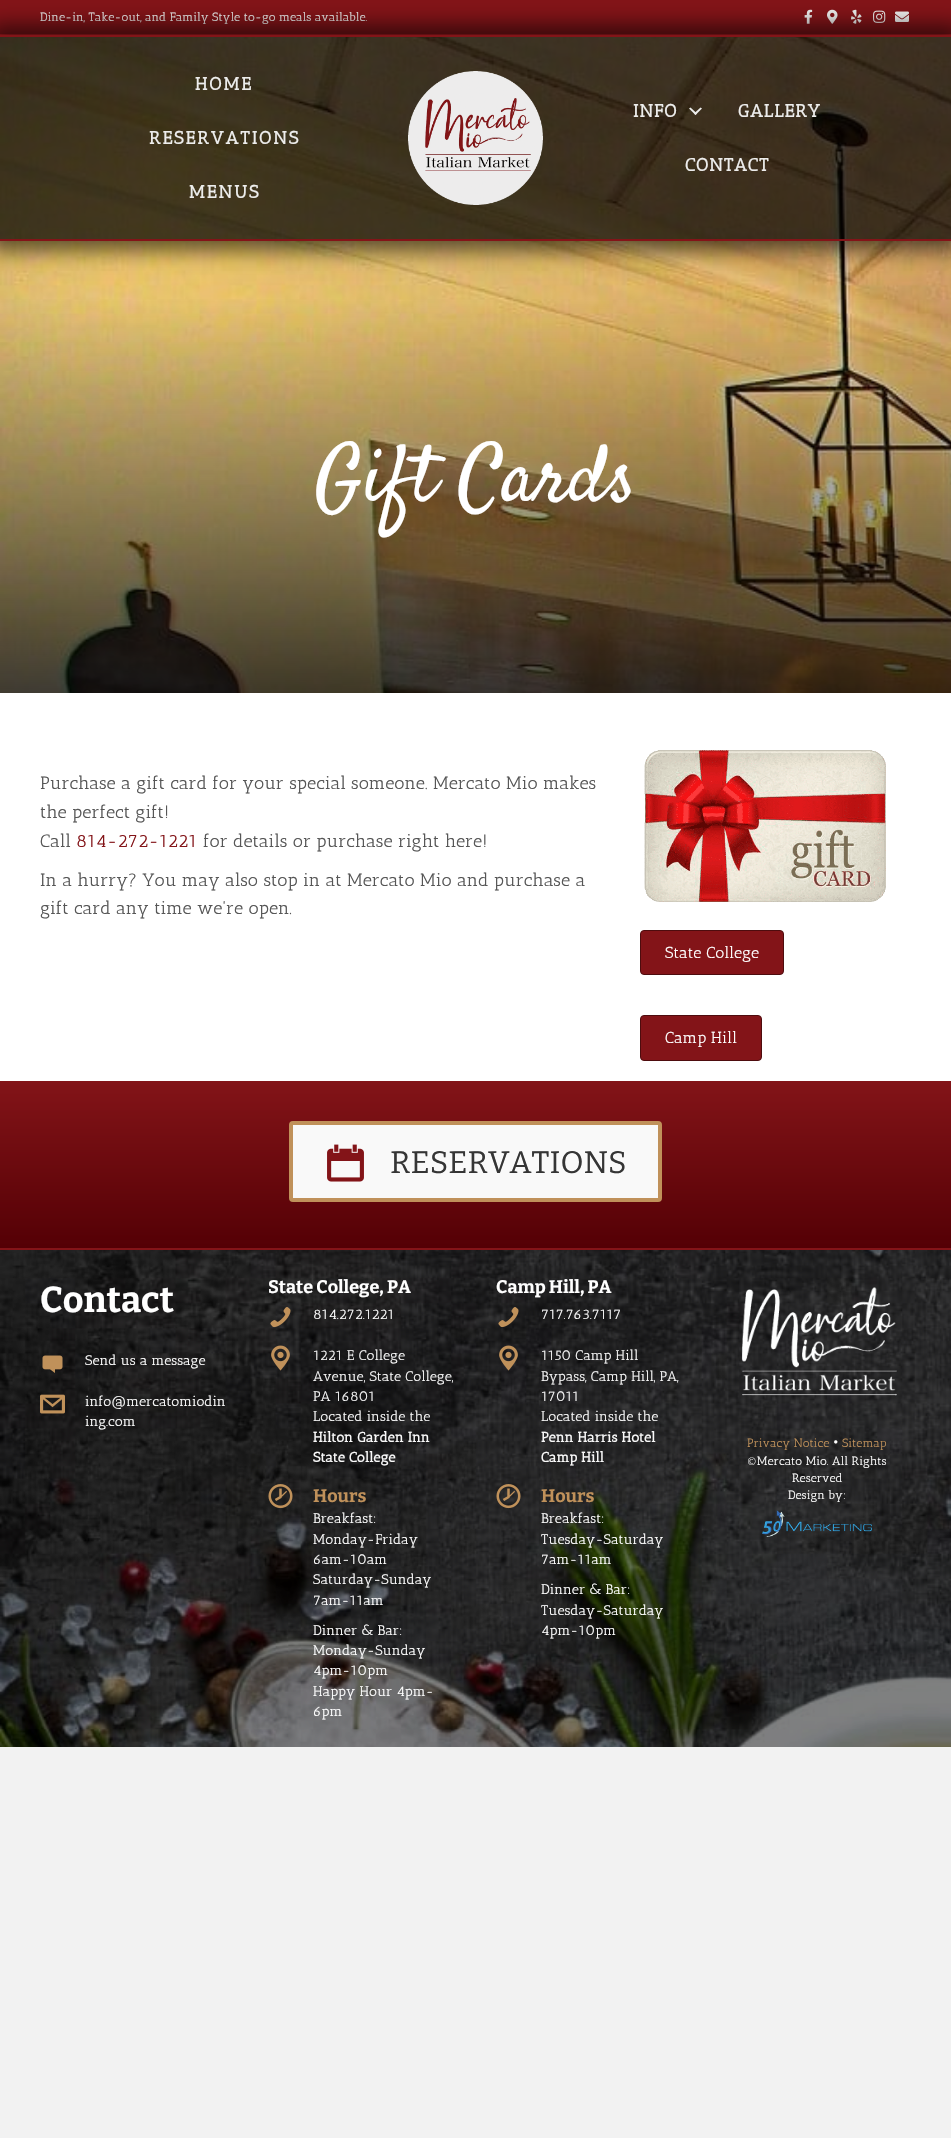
void draw(SkCanvas* canvas) {
    SkPaint paint;
    paint.setAntiAlias(true);
    auto spacedText = [&](const char* s, float x, float y, const SkFont& font, const SkPaint& ink, float letter, float word) {
        std::vector<SkGlyphID> glyphs(font.countText(s, strlen(s), SkTextEncoding::kUTF8));
        std::vector<float> xs(glyphs.size());
        font.textToGlyphs(s, strlen(s), SkTextEncoding::kUTF8, glyphs);
        font.getXPos(glyphs, xs, x);
        float extra = 0;
        for (size_t i = 0; i < glyphs.size(); i++) {
            xs[i] += extra;
            extra += letter + word * (glyphs[i] == font.unicharToGlyph(' '));
        }
        canvas->drawTextBlob(SkTextBlob::MakeFromPosHGlyphs(glyphs, xs, y, font), 0, 0, ink);
    };
    canvas->clear(0xFFF2F2F2);
    paint.setColor(0xFF831418);
    canvas->drawRect(SkRect::MakeXYWH(0, 0, 951, 34), paint);
    paint.setColor(0xFFBD1D23);
    canvas->drawRect(SkRect::MakeXYWH(0, 34, 951, 1), paint);
    SkFont font1(fontMgr->matchFamilyStyle("Antic Slab", SkFontStyle::Normal()), 12);
    font1.setSubpixel(true);
    paint.setColor(0xFFEDEDEC);
    canvas->drawString("Dine-in, Take-out, and Family Style to-go meals available.", 40, 21, font1, paint);
    canvas->drawImageRect(SkImages::DeferredFromEncodedData(SkData::MakeFromFileName("img1.png")), SkRect::MakeXYWH(804, 9, 9, 15), SkSamplingOptions());
    canvas->drawImageRect(SkImages::DeferredFromEncodedData(SkData::MakeFromFileName("img2.png")), SkRect::MakeXYWH(827, 9, 11, 15), SkSamplingOptions());
    canvas->drawImageRect(SkImages::DeferredFromEncodedData(SkData::MakeFromFileName("img3.png")), SkRect::MakeXYWH(851, 9, 11, 15), SkSamplingOptions());
    canvas->drawImageRect(SkImages::DeferredFromEncodedData(SkData::MakeFromFileName("img4.png")), SkRect::MakeXYWH(873, 10, 13, 13), SkSamplingOptions());
    canvas->drawImageRect(SkImages::DeferredFromEncodedData(SkData::MakeFromFileName("img5.png")), SkRect::MakeXYWH(895, 11, 14, 11), SkSamplingOptions());
    paint.setColor(0xFFFFFFFF);
    canvas->drawRect(SkRect::MakeXYWH(0, 693, 951, 388), paint);
    canvas->drawImageRect(SkImages::DeferredFromEncodedData(SkData::MakeFromFileName("img6.png")), SkRect::MakeXYWH(0, 37, 951, 656), SkSamplingOptions());
    canvas->save();
    canvas->clipPath(SkPathBuilder(SkPathFillType::kEvenOdd).moveTo(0, 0).lineTo(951, 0).lineTo(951, 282).lineTo(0, 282).close().moveTo(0, 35).lineTo(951, 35).lineTo(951, 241).lineTo(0, 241).close().detach(), true);
    paint.setColor(0x96000000);
    paint.setMaskFilter(SkMaskFilter::MakeBlur(kNormal_SkBlurStyle, 10));
    canvas->drawRect(SkRect::MakeXYWH(-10, 25, 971, 226), paint);
    paint.setMaskFilter(nullptr);
    canvas->restore();
    paint.setColor(0xB8000000);
    canvas->drawRect(SkRect::MakeXYWH(0, 37, 951, 202), paint);
    paint.setColor(0xFF831418);
    canvas->drawRect(SkRect::MakeXYWH(0, 35, 951, 2), paint);
    canvas->drawRect(SkRect::MakeXYWH(0, 239, 951, 2), paint);
    SkFont font2(fontMgr->matchFamilyStyle("Antic Slab", SkFontStyle::Bold()), 18);
    font2.setSubpixel(true);
    paint.setColor(0xFFEDEDEC);
    spacedText("HOME", 195, 90, font2, paint, 2, 0);
    spacedText("RESERVATIONS", 149, 144, font2, paint, 2, 0);
    spacedText("MENUS", 189, 198, font2, paint, 2, 0);
    canvas->drawImageRect(SkImages::DeferredFromEncodedData(SkData::MakeFromFileName("img7.png")), SkRect::MakeXYWH(408, 71, 135, 134), SkSamplingOptions());
    spacedText("INFO", 633, 117, font2, paint, 1, 0);
    canvas->drawPath(SkPathBuilder().moveTo(700.5f, 107.5f).lineTo(702, 108.5f).lineTo(695.5f, 115).lineTo(694, 113.5f).close().detach(), paint);
    canvas->drawPath(SkPathBuilder().moveTo(690.5f, 107.5f).lineTo(697, 113.5f).lineTo(695.5f, 115).lineTo(689, 108.5f).close().detach(), paint);
    spacedText("GALLERY", 738, 117, font2, paint, 1, 0);
    spacedText("CONTACT", 685, 171, font2, paint, 1, 0);
    SkFont font3(fontMgr->matchFamilyStyle("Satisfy", SkFontStyle::Normal()), 80);
    font3.setSubpixel(true);
    paint.setColor(0xFFFFFFFF);
    canvas->drawString("Gift Cards", 315, 500, font3, paint);
    SkFont font4(fontMgr->matchFamilyStyle("Antic Slab", SkFontStyle::Normal()), 18);
    font4.setSubpixel(true);
    paint.setColor(0xFF565656);
    canvas->drawString("Purchase a gift card for your special someone. Mercato Mio makes", 40, 789, font4, paint);
    canvas->drawString("the perfect gift!", 40, 818, font4, paint);
    canvas->drawString("Call", 40, 847, font4, paint);
    paint.setColor(0xFF831418);
    canvas->drawString("814-272-1221", 76, 847, font4, paint);
    paint.setColor(0xFF565656);
    canvas->drawString("for details or purchase right here!", 203, 847, font4, paint);
    canvas->drawString("In a hurry? You may also stop in at Mercato Mio and purchase a", 40, 886, font4, paint);
    canvas->drawString("gift card any time we're open.", 40, 914, font4, paint);
    canvas->drawImageRect(SkImages::DeferredFromEncodedData(SkData::MakeFromFileName("img8.png")), SkRect::MakeXYWH(644, 750, 242, 152), SkSamplingOptions());
    paint.setColor(0xFF831418);
    canvas->drawRoundRect(SkRect::MakeXYWH(640.5f, 930.5f, 143, 44), 3.5f, 3.5f, paint);
    paint.setStyle(SkPaint::kStroke_Style);
    paint.setStrokeWidth(1);
    paint.setColor(0xFF4E0C0E);
    canvas->drawRoundRect(SkRect::MakeXYWH(640.5f, 930.5f, 143, 44), 3.5f, 3.5f, paint);
    SkFont font5(fontMgr->matchFamilyStyle("Antic Slab", SkFontStyle::Normal()), 16);
    font5.setSubpixel(true);
    paint.setStyle(SkPaint::kFill_Style);
    paint.setColor(0xFFFFFFFF);
    canvas->drawString("State College", 665, 958, font5, paint);
    paint.setColor(0xFF831418);
    canvas->drawRoundRect(SkRect::MakeXYWH(640.5f, 1015.5f, 121, 45), 3.5f, 3.5f, paint);
    paint.setStyle(SkPaint::kStroke_Style);
    paint.setColor(0xFF4E0C0E);
    canvas->drawRoundRect(SkRect::MakeXYWH(640.5f, 1015.5f, 121, 45), 3.5f, 3.5f, paint);
    paint.setStyle(SkPaint::kFill_Style);
    paint.setColor(0xFFFFFFFF);
    canvas->drawString("Camp Hill", 665, 1043, font5, paint);
    {
        const SkColor colors[] = {0xFF831418, 0xFF540005};
        const float stops[] = {0, 1};
        const SkPoint ends[] = {{476, 1081}, {476, 1248}};
        paint.setShader(SkGradientShader::MakeLinear(ends, colors, stops, 2, SkTileMode::kClamp));
        paint.setAlpha(255);
    }
    canvas->drawRect(SkRect::MakeXYWH(0, 1081, 951, 167), paint);
    paint.setShader(nullptr);
    paint.setColor(0xFFF9F9F9);
    canvas->drawRoundRect(SkRect::MakeXYWH(291, 1123, 369, 77), 2, 2, paint);
    paint.setStyle(SkPaint::kStroke_Style);
    paint.setStrokeWidth(4);
    paint.setColor(0xFFC0915A);
    canvas->drawRoundRect(SkRect::MakeXYWH(291, 1123, 369, 77), 2, 2, paint);
    canvas->drawImageRect(SkImages::DeferredFromEncodedData(SkData::MakeFromFileName("img9.png")), SkRect::MakeXYWH(327, 1144, 37, 38), SkSamplingOptions());
    SkFont font6(fontMgr->matchFamilyStyle("Bitter", SkFontStyle::Normal()), 31);
    font6.setSubpixel(true);
    paint.setStyle(SkPaint::kFill_Style);
    paint.setColor(0xFF353535);
    canvas->drawString("RESERVATIONS", 390, 1173, font6, paint);
    canvas->drawImageRect(SkImages::DeferredFromEncodedData(SkData::MakeFromFileName("img10.png")), SkRect::MakeXYWH(0, 1250, 951, 497), SkSamplingOptions());
    paint.setColor(0xFF831418);
    canvas->drawRect(SkRect::MakeXYWH(0, 1248, 951, 2), paint);
    SkFont font7(fontMgr->matchFamilyStyle("Bitter", SkFontStyle::Bold()), 36);
    font7.setSubpixel(true);
    paint.setColor(0xFFFFFFFF);
    canvas->drawString("Contact", 40, 1312, font7, paint);
    canvas->drawImageRect(SkImages::DeferredFromEncodedData(SkData::MakeFromFileName("img11.png")), SkRect::MakeXYWH(42, 1355, 21, 18), SkSamplingOptions());
    SkFont font8(fontMgr->matchFamilyStyle("Antic Slab", SkFontStyle::Normal()), 14);
    font8.setSubpixel(true);
    canvas->drawString("Send us a message", 85, 1365, font8, paint);
    canvas->drawImageRect(SkImages::DeferredFromEncodedData(SkData::MakeFromFileName("img12.png")), SkRect::MakeXYWH(40, 1394, 25, 20), SkSamplingOptions());
    canvas->drawString("info@mercatomiodin", 85, 1406, font8, paint);
    canvas->drawString("ing.com", 85, 1426, font8, paint);
    SkFont font9(fontMgr->matchFamilyStyle("Bitter", SkFontStyle::Bold()), 18);
    font9.setSubpixel(true);
    canvas->drawString("State College, PA", 268, 1293, font9, paint);
    canvas->drawImageRect(SkImages::DeferredFromEncodedData(SkData::MakeFromFileName("img13.png")), SkRect::MakeXYWH(270, 1307, 21, 21), SkSamplingOptions());
    canvas->drawString("814.272.1221", 313, 1319, font8, paint);
    canvas->drawImageRect(SkImages::DeferredFromEncodedData(SkData::MakeFromFileName("img14.png")), SkRect::MakeXYWH(271, 1345, 19, 26), SkSamplingOptions());
    paint.setColor(0xFFF9F9F9);
    canvas->drawString("1221 E College", 313, 1360, font8, paint);
    canvas->drawString("Avenue, State College,", 313, 1381, font8, paint);
    canvas->drawString("PA 16801", 313, 1401, font8, paint);
    canvas->drawString("Located inside the", 313, 1421, font8, paint);
    SkFont font10(fontMgr->matchFamilyStyle("Antic Slab", SkFontStyle::Bold()), 14);
    font10.setSubpixel(true);
    canvas->drawString("Hilton Garden Inn", 313, 1442, font10, paint);
    canvas->drawString("State College", 313, 1462, font10, paint);
    canvas->drawImageRect(SkImages::DeferredFromEncodedData(SkData::MakeFromFileName("img15.png")), SkRect::MakeXYWH(268, 1484, 25, 25), SkSamplingOptions());
    paint.setColor(0xFFC0915A);
    canvas->drawString("Hours", 313, 1502, font9, paint);
    paint.setColor(0xFFFFFFFF);
    canvas->drawString("Breakfast:", 313, 1523, font8, paint);
    canvas->drawString("Monday-Friday", 313, 1544, font8, paint);
    canvas->drawString("6am-10am", 313, 1564, font8, paint);
    canvas->drawString("Saturday-Sunday", 313, 1584, font8, paint);
    canvas->drawString("7am-11am", 313, 1605, font8, paint);
    canvas->drawString("Dinner & Bar:", 313, 1635, font8, paint);
    canvas->drawString("Monday-Sunday", 313, 1655, font8, paint);
    canvas->drawString("4pm-10pm", 313, 1675, font8, paint);
    canvas->drawString("Happy Hour 4pm-", 313, 1696, font8, paint);
    canvas->drawString("6pm", 313, 1716, font8, paint);
    canvas->drawString("Camp Hill, PA", 496, 1293, font9, paint);
    canvas->drawImageRect(SkImages::DeferredFromEncodedData(SkData::MakeFromFileName("img16.png")), SkRect::MakeXYWH(498, 1307, 21, 21), SkSamplingOptions());
    canvas->drawString("717.763.7117", 541, 1319, font8, paint);
    canvas->drawImageRect(SkImages::DeferredFromEncodedData(SkData::MakeFromFileName("img17.png")), SkRect::MakeXYWH(499, 1345, 19, 26), SkSamplingOptions());
    paint.setColor(0xFFF9F9F9);
    canvas->drawString("1150 Camp Hill", 541, 1360, font8, paint);
    canvas->drawString("Bypass, Camp Hill, PA,", 541, 1381, font8, paint);
    canvas->drawString("17011", 541, 1401, font8, paint);
    canvas->drawString("Located inside the", 541, 1421, font8, paint);
    canvas->drawString("Penn Harris Hotel", 541, 1442, font10, paint);
    canvas->drawString("Camp Hill", 541, 1462, font10, paint);
    canvas->drawImageRect(SkImages::DeferredFromEncodedData(SkData::MakeFromFileName("img18.png")), SkRect::MakeXYWH(496, 1484, 25, 25), SkSamplingOptions());
    paint.setColor(0xFFC0915A);
    canvas->drawString("Hours", 541, 1502, font9, paint);
    paint.setColor(0xFFFFFFFF);
    canvas->drawString("Breakfast:", 541, 1523, font8, paint);
    canvas->drawString("Tuesday-Saturday", 541, 1544, font8, paint);
    canvas->drawString("7am-11am", 541, 1564, font8, paint);
    canvas->drawString("Dinner & Bar:", 541, 1594, font8, paint);
    canvas->drawString("Tuesday-Saturday", 541, 1615, font8, paint);
    canvas->drawString("4pm-10pm", 541, 1635, font8, paint);
    canvas->drawImageRect(SkImages::DeferredFromEncodedData(SkData::MakeFromFileName("img19.png")), SkRect::MakeXYWH(742, 1287, 155, 109), SkSamplingOptions());
    paint.setColor(0xFFC0915A);
    canvas->drawString("Privacy Notice", 747, 1447, font1, paint);
    paint.setColor(0xFFFFFFFF);
    canvas->drawString("•", 833, 1447, font1, paint);
    paint.setColor(0xFFC0915A);
    canvas->drawString("Sitemap", 842, 1447, font1, paint);
    paint.setColor(0xFFFFFFFF);
    canvas->drawString("©Mercato Mio. All Rights", 747, 1465, font1, paint);
    canvas->drawString("Reserved", 792, 1482, font1, paint);
    canvas->drawString("Design by:", 788, 1499, font1, paint);
    canvas->drawImageRect(SkImages::DeferredFromEncodedData(SkData::MakeFromFileName("img20.png")), SkRect::MakeXYWH(762, 1510, 110, 27), SkSamplingOptions());
}
